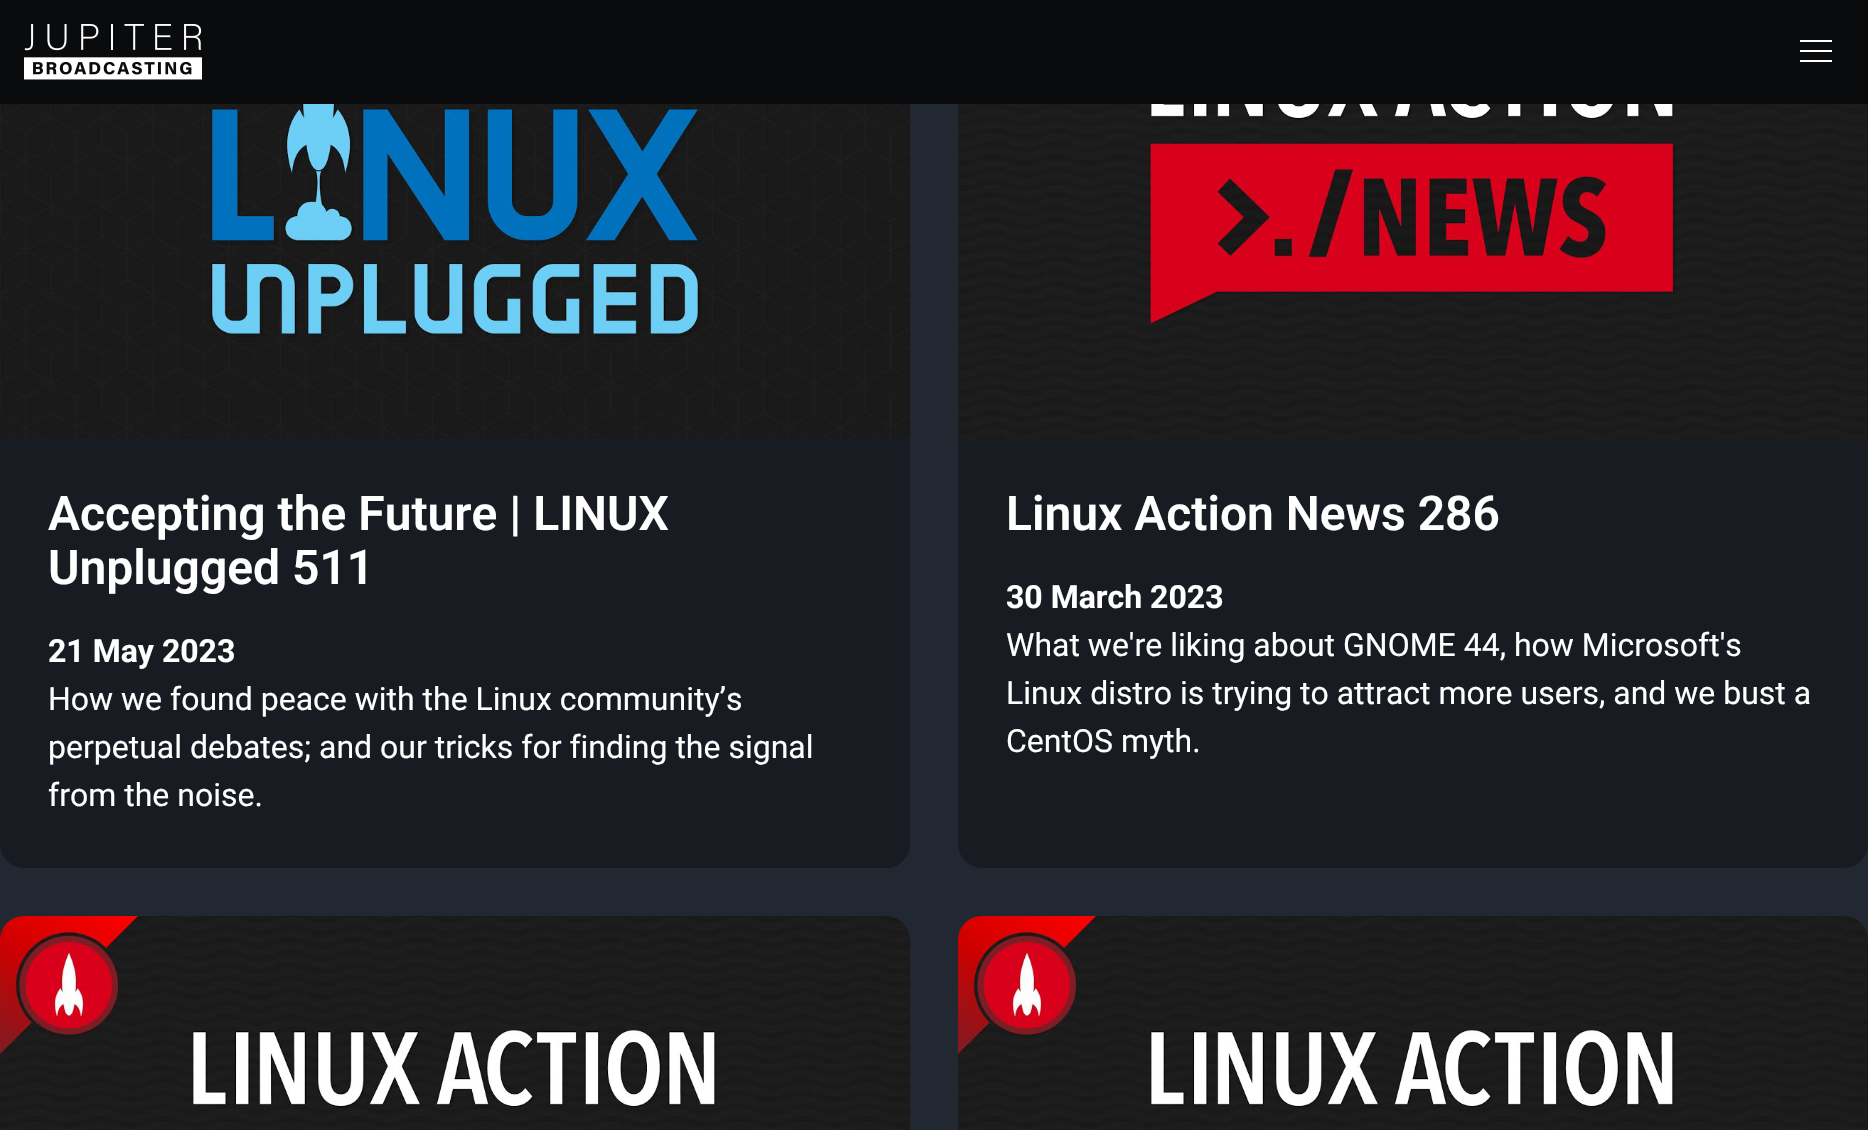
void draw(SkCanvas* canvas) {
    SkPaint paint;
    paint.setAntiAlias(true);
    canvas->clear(0xFF222831);
    paint.setColor(0xFF181C22);
    canvas->drawRoundRect(SkRect::MakeXYWH(0, -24, 910, 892), 24, 24, paint);
    canvas->drawRoundRect(SkRect::MakeXYWH(958, -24, 910, 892), 24, 24, paint);
    paint.setColor(0xFF0A0B0C);
    canvas->drawRect(SkRect::MakeXYWH(0, 0, 1868, 104), paint);
    canvas->drawImageRect(SkImages::DeferredFromEncodedData(SkData::MakeFromFileName("img1.png")), SkRect::MakeXYWH(24, 24, 178, 56), SkSamplingOptions());
    paint.setColor(0xFFFFFFFF);
    canvas->drawRect(SkRect::MakeXYWH(1800, 40, 32, 2), paint);
    canvas->drawRect(SkRect::MakeXYWH(1800, 50, 32, 2), paint);
    canvas->drawRect(SkRect::MakeXYWH(1800, 60, 32, 2), paint);
    canvas->drawImageRect(SkImages::DeferredFromEncodedData(SkData::MakeFromFileName("img2.png")), SkRect::MakeXYWH(0, 104, 910, 334), SkSamplingOptions());
    paint.setColor(0xFF181C22);
    canvas->drawPath(SkPathBuilder().moveTo(0, 440).lineTo(910, 440).lineTo(910, 844).cubicTo(910, 857.5f, 899.5f, 868, 886, 868).lineTo(24, 868).cubicTo(10.5f, 868, 0, 857.5f, 0, 844).close().detach(), paint);
    SkFont font1(fontMgr->matchFamilyStyle("Roboto", SkFontStyle(600, SkFontStyle::kNormal_Width, SkFontStyle::kUpright_Slant)), 48);
    font1.setSubpixel(true);
    paint.setColor(0xFFFFFFFF);
    canvas->drawString("Accepting the Future | LINUX", 48, 530, font1, paint);
    canvas->drawString("Unplugged 511", 48, 584, font1, paint);
    SkFont font2(fontMgr->matchFamilyStyle("Roboto", SkFontStyle::Bold()), 32);
    font2.setSubpixel(true);
    canvas->drawString("21 May 2023", 48, 662, font2, paint);
    SkFont font3(fontMgr->matchFamilyStyle("Roboto", SkFontStyle::Normal()), 32);
    font3.setSubpixel(true);
    canvas->drawString("How we found peace with the Linux community’s", 48, 710, font3, paint);
    canvas->drawString("perpetual debates; and our tricks for finding the signal", 48, 758, font3, paint);
    canvas->drawString("from the noise.", 48, 806, font3, paint);
    canvas->drawImageRect(SkImages::DeferredFromEncodedData(SkData::MakeFromFileName("img3.png")), SkRect::MakeXYWH(958, 104, 910, 336), SkSamplingOptions());
    canvas->drawString("Linux Action News 286", 1006, 530, font1, paint);
    canvas->drawString("30 March 2023", 1006, 608, font2, paint);
    canvas->drawString("What we're liking about GNOME 44, how Microsoft's", 1006, 656, font3, paint);
    canvas->drawString("Linux distro is trying to attract more users, and we bust a", 1006, 704, font3, paint);
    canvas->drawString("CentOS myth.", 1006, 752, font3, paint);
    canvas->drawImageRect(SkImages::DeferredFromEncodedData(SkData::MakeFromFileName("img4.png")), SkRect::MakeXYWH(0, 916, 910, 214), SkSamplingOptions());
    canvas->drawImageRect(SkImages::DeferredFromEncodedData(SkData::MakeFromFileName("img5.png")), SkRect::MakeXYWH(958, 916, 910, 214), SkSamplingOptions());
}
